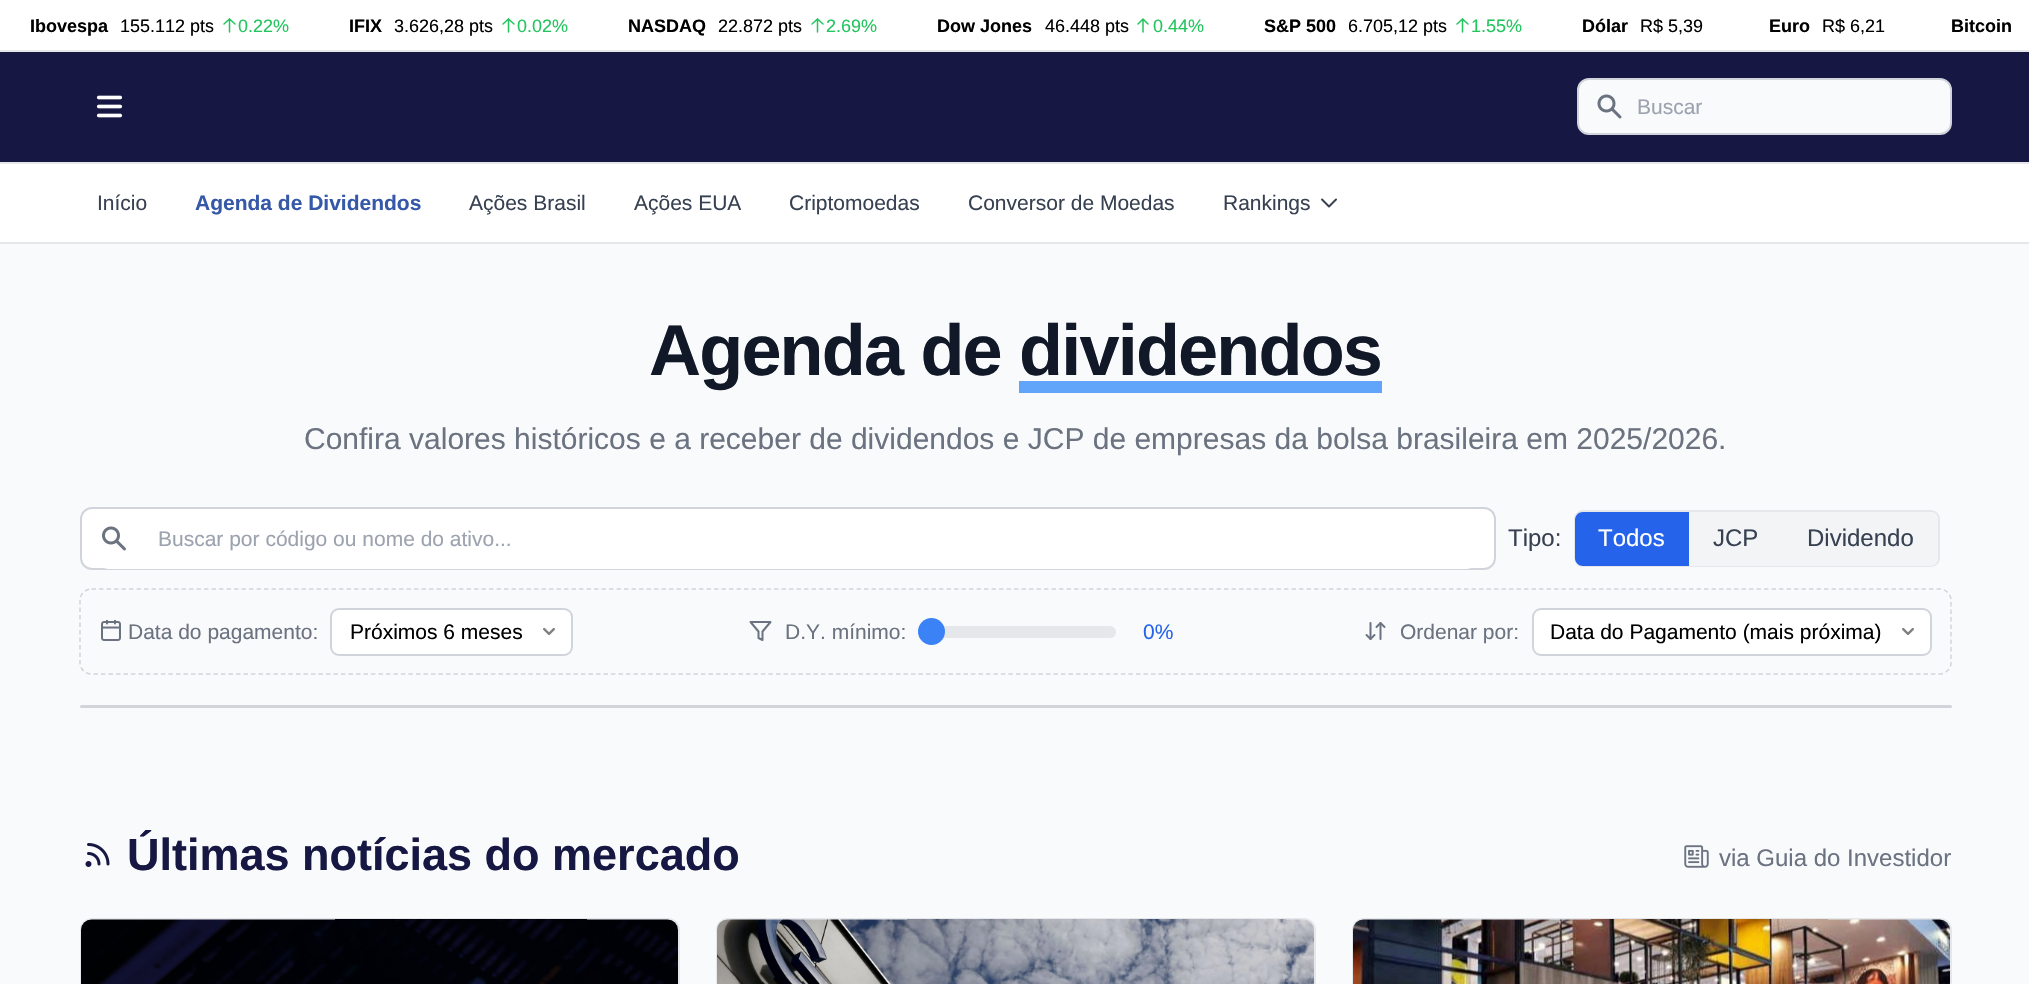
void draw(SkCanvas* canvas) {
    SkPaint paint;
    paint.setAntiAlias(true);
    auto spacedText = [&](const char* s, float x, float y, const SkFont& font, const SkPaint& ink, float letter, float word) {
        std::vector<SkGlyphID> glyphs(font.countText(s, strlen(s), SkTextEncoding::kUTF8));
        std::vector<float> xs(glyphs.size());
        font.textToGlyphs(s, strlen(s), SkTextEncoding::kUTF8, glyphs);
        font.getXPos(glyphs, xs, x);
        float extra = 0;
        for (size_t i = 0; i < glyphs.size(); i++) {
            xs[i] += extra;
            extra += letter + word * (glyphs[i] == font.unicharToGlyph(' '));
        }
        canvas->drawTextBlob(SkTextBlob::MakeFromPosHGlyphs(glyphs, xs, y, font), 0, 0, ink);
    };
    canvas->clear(0xFFF9FAFB);
    paint.setColor(0xFFFFFFFF);
    canvas->drawRect(SkRect::MakeXYWH(0, 0, 2029, 50), paint);
    paint.setColor(0xFFE5E7EB);
    canvas->drawRect(SkRect::MakeXYWH(0, 50, 2029, 2), paint);
    SkFont font1(fontMgr->matchFamilyStyle("Liberation Sans", SkFontStyle::Bold()), 18);
    font1.setSubpixel(true);
    paint.setColor(0xFF000000);
    canvas->drawString("Ibovespa", 30, 32, font1, paint);
    SkFont font2(fontMgr->matchFamilyStyle("Liberation Sans", SkFontStyle::Normal()), 18);
    font2.setSubpixel(true);
    canvas->drawString("155.112 pts", 120, 32, font2, paint);
    paint.setStyle(SkPaint::kStroke_Style);
    paint.setStrokeWidth(1.5f);
    paint.setStrokeCap(SkPaint::kRound_Cap);
    paint.setStrokeJoin(SkPaint::kRound_Join);
    paint.setColor(0xFF22C55E);
    canvas->drawPath(SkPathBuilder().moveTo(224, 24).lineTo(229.5f, 19).moveTo(229.5f, 19).lineTo(235, 24).moveTo(229.5f, 19).lineTo(229.5f, 32).detach(), paint);
    paint.setStyle(SkPaint::kFill_Style);
    canvas->drawString("0.22%", 238, 32, font2, paint);
    paint.setColor(0xFF000000);
    canvas->drawString("IFIX", 349, 32, font1, paint);
    canvas->drawString("3.626,28 pts", 394, 32, font2, paint);
    paint.setStyle(SkPaint::kStroke_Style);
    paint.setColor(0xFF22C55E);
    canvas->drawPath(SkPathBuilder().moveTo(503, 24).lineTo(508.5f, 19).moveTo(508.5f, 19).lineTo(514, 24).moveTo(508.5f, 19).lineTo(508.5f, 32).detach(), paint);
    paint.setStyle(SkPaint::kFill_Style);
    canvas->drawString("0.02%", 517, 32, font2, paint);
    paint.setColor(0xFF000000);
    canvas->drawString("NASDAQ", 628, 32, font1, paint);
    canvas->drawString("22.872 pts", 718, 32, font2, paint);
    paint.setStyle(SkPaint::kStroke_Style);
    paint.setColor(0xFF22C55E);
    canvas->drawPath(SkPathBuilder().moveTo(812, 24).lineTo(817.5f, 19).moveTo(817.5f, 19).lineTo(823, 24).moveTo(817.5f, 19).lineTo(817.5f, 32).detach(), paint);
    paint.setStyle(SkPaint::kFill_Style);
    canvas->drawString("2.69%", 826, 32, font2, paint);
    paint.setColor(0xFF000000);
    canvas->drawString("Dow Jones", 937, 32, font1, paint);
    canvas->drawString("46.448 pts", 1045, 32, font2, paint);
    paint.setStyle(SkPaint::kStroke_Style);
    paint.setColor(0xFF22C55E);
    canvas->drawPath(SkPathBuilder().moveTo(1138, 24).lineTo(1143, 19).moveTo(1143, 19).lineTo(1148, 24).moveTo(1143, 19).lineTo(1143, 32).detach(), paint);
    paint.setStyle(SkPaint::kFill_Style);
    canvas->drawString("0.44%", 1153, 32, font2, paint);
    paint.setColor(0xFF000000);
    canvas->drawString("S&P 500", 1264, 32, font1, paint);
    canvas->drawString("6.705,12 pts", 1348, 32, font2, paint);
    paint.setStyle(SkPaint::kStroke_Style);
    paint.setColor(0xFF22C55E);
    canvas->drawPath(SkPathBuilder().moveTo(1457, 24).lineTo(1462.5f, 19).moveTo(1462.5f, 19).lineTo(1468, 24).moveTo(1462.5f, 19).lineTo(1462.5f, 32).detach(), paint);
    paint.setStyle(SkPaint::kFill_Style);
    canvas->drawString("1.55%", 1471, 32, font2, paint);
    paint.setColor(0xFF000000);
    canvas->drawString("Dólar", 1582, 32, font1, paint);
    canvas->drawString("R$ 5,39", 1640, 32, font2, paint);
    canvas->drawString("Euro", 1769, 32, font1, paint);
    canvas->drawString("R$ 6,21", 1822, 32, font2, paint);
    canvas->drawString("Bitcoin", 1951, 32, font1, paint);
    paint.setColor(0xFF161742);
    canvas->drawRect(SkRect::MakeXYWH(0, 52, 2029, 110), paint);
    paint.setColor(0xFFE5E7EB);
    canvas->drawRect(SkRect::MakeXYWH(0, 162, 2029, 2), paint);
    canvas->drawImageRect(SkImages::DeferredFromEncodedData(SkData::MakeFromFileName("img1.png")), SkRect::MakeXYWH(96, 95, 27, 23), SkSamplingOptions());
    paint.setColor(0xFFF9FAFB);
    canvas->drawRoundRect(SkRect::MakeXYWH(1578, 79, 373, 55), 11, 11, paint);
    paint.setStyle(SkPaint::kStroke_Style);
    paint.setStrokeWidth(2);
    paint.setStrokeCap(SkPaint::kButt_Cap);
    paint.setStrokeJoin(SkPaint::kMiter_Join);
    paint.setColor(0xFFD1D5DB);
    canvas->drawRoundRect(SkRect::MakeXYWH(1578, 79, 373, 55), 11, 11, paint);
    canvas->drawImageRect(SkImages::DeferredFromEncodedData(SkData::MakeFromFileName("img2.png")), SkRect::MakeXYWH(1597, 94, 25, 25), SkSamplingOptions());
    SkFont font3(fontMgr->matchFamilyStyle("Liberation Sans", SkFontStyle::Normal()), 21);
    font3.setSubpixel(true);
    paint.setStyle(SkPaint::kFill_Style);
    paint.setColor(0xFF9CA3AF);
    canvas->drawString("Buscar", 1637, 114, font3, paint);
    paint.setColor(0xFFFFFFFF);
    canvas->drawRect(SkRect::MakeXYWH(0, 164, 2029, 78), paint);
    paint.setColor(0xFFE5E7EB);
    canvas->drawRect(SkRect::MakeXYWH(0, 242, 2029, 2), paint);
    paint.setColor(0xFF374151);
    canvas->drawString("Início", 97, 210, font3, paint);
    SkFont font4(fontMgr->matchFamilyStyle("Liberation Sans", SkFontStyle::Bold()), 21);
    font4.setSubpixel(true);
    paint.setColor(0xFF3558A8);
    canvas->drawString("Agenda de Dividendos", 195, 210, font4, paint);
    paint.setColor(0xFF374151);
    canvas->drawString("Ações Brasil", 469, 210, font3, paint);
    canvas->drawString("Ações EUA", 634, 210, font3, paint);
    canvas->drawString("Criptomoedas", 789, 210, font3, paint);
    canvas->drawString("Conversor de Moedas", 968, 210, font3, paint);
    canvas->drawString("Rankings", 1223, 210, font3, paint);
    paint.setStyle(SkPaint::kStroke_Style);
    paint.setStrokeCap(SkPaint::kRound_Cap);
    paint.setStrokeJoin(SkPaint::kRound_Join);
    canvas->drawPath(SkPathBuilder().moveTo(1336, 199.5f).lineTo(1329, 206.5f).lineTo(1322, 199.5f).detach(), paint);
    SkFont font5(fontMgr->matchFamilyStyle("Liberation Sans", SkFontStyle::Bold()), 72);
    font5.setSubpixel(true);
    paint.setStyle(SkPaint::kFill_Style);
    paint.setColor(0xFF111827);
    spacedText("Agenda de dividendos", 649, 375, font5, paint, -1.8f, 0);
    paint.setColor(0xFF60A5FA);
    canvas->drawRect(SkRect::MakeXYWH(1019, 381, 363, 12), paint);
    SkFont font6(fontMgr->matchFamilyStyle("Liberation Sans", SkFontStyle::Normal()), 30);
    font6.setSubpixel(true);
    paint.setColor(0xFF6B7280);
    canvas->drawString("Confira valores históricos e a receber de dividendos e JCP de empresas da bolsa brasileira em 2025/2026.", 304, 449, font6, paint);
    paint.setColor(0xFFFFFFFF);
    canvas->drawRoundRect(SkRect::MakeXYWH(81, 508, 1414, 61), 11, 11, paint);
    paint.setStyle(SkPaint::kStroke_Style);
    paint.setStrokeCap(SkPaint::kButt_Cap);
    paint.setStrokeJoin(SkPaint::kMiter_Join);
    paint.setColor(0xFFD1D5DB);
    canvas->drawRoundRect(SkRect::MakeXYWH(81, 508, 1414, 61), 11, 11, paint);
    paint.setStyle(SkPaint::kFill_Style);
    paint.setColor(0xFFFFFFFF);
    canvas->drawRoundRect(SkRect::MakeXYWH(99, 509, 1377, 60), 9, 9, paint);
    canvas->drawImageRect(SkImages::DeferredFromEncodedData(SkData::MakeFromFileName("img3.png")), SkRect::MakeXYWH(102, 526, 24, 25), SkSamplingOptions());
    paint.setColor(0xFF9CA3AF);
    canvas->drawString("Buscar por código ou nome do ativo...", 158, 546, font3, paint);
    SkFont font7(fontMgr->matchFamilyStyle("Liberation Sans", SkFontStyle::Normal()), 24);
    font7.setSubpixel(true);
    paint.setColor(0xFF374151);
    canvas->drawString("Tipo:", 1508, 546, font7, paint);
    paint.setStyle(SkPaint::kStroke_Style);
    paint.setColor(0xFFE5E7EB);
    canvas->drawRoundRect(SkRect::MakeXYWH(1575, 511, 364, 55), 8, 8, paint);
    paint.setStyle(SkPaint::kFill_Style);
    paint.setColor(0xFF2563EB);
    canvas->drawPath(SkPathBuilder().moveTo(1583, 512).lineTo(1689, 512).lineTo(1689, 566).lineTo(1583, 566).cubicTo(1578.5f, 566, 1575, 562.5f, 1575, 558).lineTo(1575, 520).cubicTo(1575, 515.5f, 1578.5f, 512, 1583, 512).close().detach(), paint);
    paint.setColor(0xFFFFFFFF);
    canvas->drawString("Todos", 1598, 546, font7, paint);
    paint.setColor(0xFFF3F4F6);
    canvas->drawRect(SkRect::MakeXYWH(1689, 512, 93, 54), paint);
    paint.setColor(0xFF374151);
    canvas->drawString("JCP", 1713, 546, font7, paint);
    paint.setColor(0xFFF3F4F6);
    canvas->drawPath(SkPathBuilder().moveTo(1782, 512).lineTo(1930, 512).cubicTo(1934.5f, 512, 1938, 515.5f, 1938, 520).lineTo(1938, 558).cubicTo(1938, 562.5f, 1934.5f, 566, 1930, 566).lineTo(1782, 566).close().detach(), paint);
    paint.setColor(0xFF374151);
    canvas->drawString("Dividendo", 1807, 546, font7, paint);
    paint.setStyle(SkPaint::kStroke_Style);
    paint.setStrokeWidth(1.5f);
    paint.setColor(0xFFD1D5DB);
    paint.setPathEffect(SkDashPathEffect::Make({{4.5f, 3}}, 0));
    canvas->drawPath(SkPathBuilder().moveTo(91.5f, 589).lineTo(1939.5f, 589).cubicTo(1945.5f, 589, 1951, 594, 1951, 600).lineTo(1951, 663).cubicTo(1951, 669, 1945.5f, 674, 1939.5f, 674).lineTo(91.5f, 674).cubicTo(85.5f, 674, 80, 669, 80, 663).lineTo(80, 600).cubicTo(80, 594, 85.5f, 589, 91.5f, 589).close().detach(), paint);
    paint.setPathEffect(nullptr);
    canvas->drawImageRect(SkImages::DeferredFromEncodedData(SkData::MakeFromFileName("img4.png")), SkRect::MakeXYWH(101, 620, 20, 21), SkSamplingOptions());
    paint.setStyle(SkPaint::kFill_Style);
    paint.setColor(0xFF6B7280);
    canvas->drawString("Data do pagamento:", 128, 639, font3, paint);
    paint.setColor(0xFFFFFFFF);
    canvas->drawRoundRect(SkRect::MakeXYWH(331, 609, 241, 46), 8, 8, paint);
    paint.setStyle(SkPaint::kStroke_Style);
    paint.setStrokeWidth(2);
    paint.setColor(0xFFD1D5DB);
    canvas->drawRoundRect(SkRect::MakeXYWH(331, 609, 241, 46), 8, 8, paint);
    paint.setStyle(SkPaint::kFill_Style);
    paint.setColor(0xFF000000);
    canvas->drawString("Próximos 6 meses", 350, 639, font3, paint);
    canvas->drawImageRect(SkImages::DeferredFromEncodedData(SkData::MakeFromFileName("img5.png")), SkRect::MakeXYWH(543, 628, 12, 7), SkSamplingOptions());
    paint.setStyle(SkPaint::kStroke_Style);
    paint.setStrokeCap(SkPaint::kRound_Cap);
    paint.setStrokeJoin(SkPaint::kRound_Join);
    paint.setColor(0xFF6B7280);
    canvas->drawPath(SkPathBuilder().moveTo(770.5f, 622).lineTo(750.5f, 622).lineTo(758.5f, 631.5f).lineTo(758.5f, 638).lineTo(762.5f, 640).lineTo(762.5f, 631.5f).close().detach(), paint);
    paint.setStyle(SkPaint::kFill_Style);
    canvas->drawString("D.Y. mínimo:", 785, 639, font3, paint);
    paint.setColor(0xFFE5E7EB);
    canvas->drawRoundRect(SkRect::MakeXYWH(918, 626, 198, 12), 6, 6, paint);
    paint.setColor(0xFF3B82F6);
    canvas->drawCircle(931.5f, 631.5f, 13.5f, paint);
    paint.setColor(0xFF2563EB);
    canvas->drawString("0%", 1143, 639, font3, paint);
    canvas->drawImageRect(SkImages::DeferredFromEncodedData(SkData::MakeFromFileName("img6.png")), SkRect::MakeXYWH(1365, 622, 21, 18), SkSamplingOptions());
    paint.setColor(0xFF6B7280);
    canvas->drawString("Ordenar por:", 1400, 639, font3, paint);
    paint.setColor(0xFFFFFFFF);
    canvas->drawRoundRect(SkRect::MakeXYWH(1533, 609, 398, 46), 8, 8, paint);
    paint.setStyle(SkPaint::kStroke_Style);
    paint.setStrokeCap(SkPaint::kButt_Cap);
    paint.setStrokeJoin(SkPaint::kMiter_Join);
    paint.setColor(0xFFD1D5DB);
    canvas->drawRoundRect(SkRect::MakeXYWH(1533, 609, 398, 46), 8, 8, paint);
    paint.setStyle(SkPaint::kFill_Style);
    paint.setColor(0xFF000000);
    canvas->drawString("Data do Pagamento (mais próxima)", 1550, 639, font3, paint);
    canvas->drawImageRect(SkImages::DeferredFromEncodedData(SkData::MakeFromFileName("img5.png")), SkRect::MakeXYWH(1902, 628, 12, 7), SkSamplingOptions());
    paint.setColor(0xFFD1D5DB);
    canvas->drawRoundRect(SkRect::MakeXYWH(80, 705, 1872, 3), 1.5f, 1.5f, paint);
    canvas->drawImageRect(SkImages::DeferredFromEncodedData(SkData::MakeFromFileName("img7.png")), SkRect::MakeXYWH(85, 843, 25, 24), SkSamplingOptions());
    SkFont font8(fontMgr->matchFamilyStyle("Liberation Sans", SkFontStyle::Bold()), 45);
    font8.setSubpixel(true);
    paint.setColor(0xFF161742);
    canvas->drawString("Últimas notícias do mercado", 127, 870, font8, paint);
    canvas->drawImageRect(SkImages::DeferredFromEncodedData(SkData::MakeFromFileName("img8.png")), SkRect::MakeXYWH(1684, 845, 25, 23), SkSamplingOptions());
    paint.setColor(0xFF6B7280);
    canvas->drawString("via Guia do Investidor", 1719, 866, font7, paint);
    paint.setStyle(SkPaint::kStroke_Style);
    paint.setColor(0xFFE5E7EB);
    canvas->drawRoundRect(SkRect::MakeXYWH(81, 919, 598, 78), 11, 11, paint);
    canvas->drawImageRect(SkImages::DeferredFromEncodedData(SkData::MakeFromFileName("img9.png")), SkRect::MakeXYWH(81, 919, 597, 65), SkSamplingOptions());
    canvas->drawRoundRect(SkRect::MakeXYWH(717, 919, 598, 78), 11, 11, paint);
    canvas->drawImageRect(SkImages::DeferredFromEncodedData(SkData::MakeFromFileName("img10.png")), SkRect::MakeXYWH(717, 919, 597, 65), SkSamplingOptions());
    canvas->drawRoundRect(SkRect::MakeXYWH(1353, 919, 598, 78), 11, 11, paint);
    canvas->drawImageRect(SkImages::DeferredFromEncodedData(SkData::MakeFromFileName("img11.png")), SkRect::MakeXYWH(1353, 919, 597, 65), SkSamplingOptions());
}
